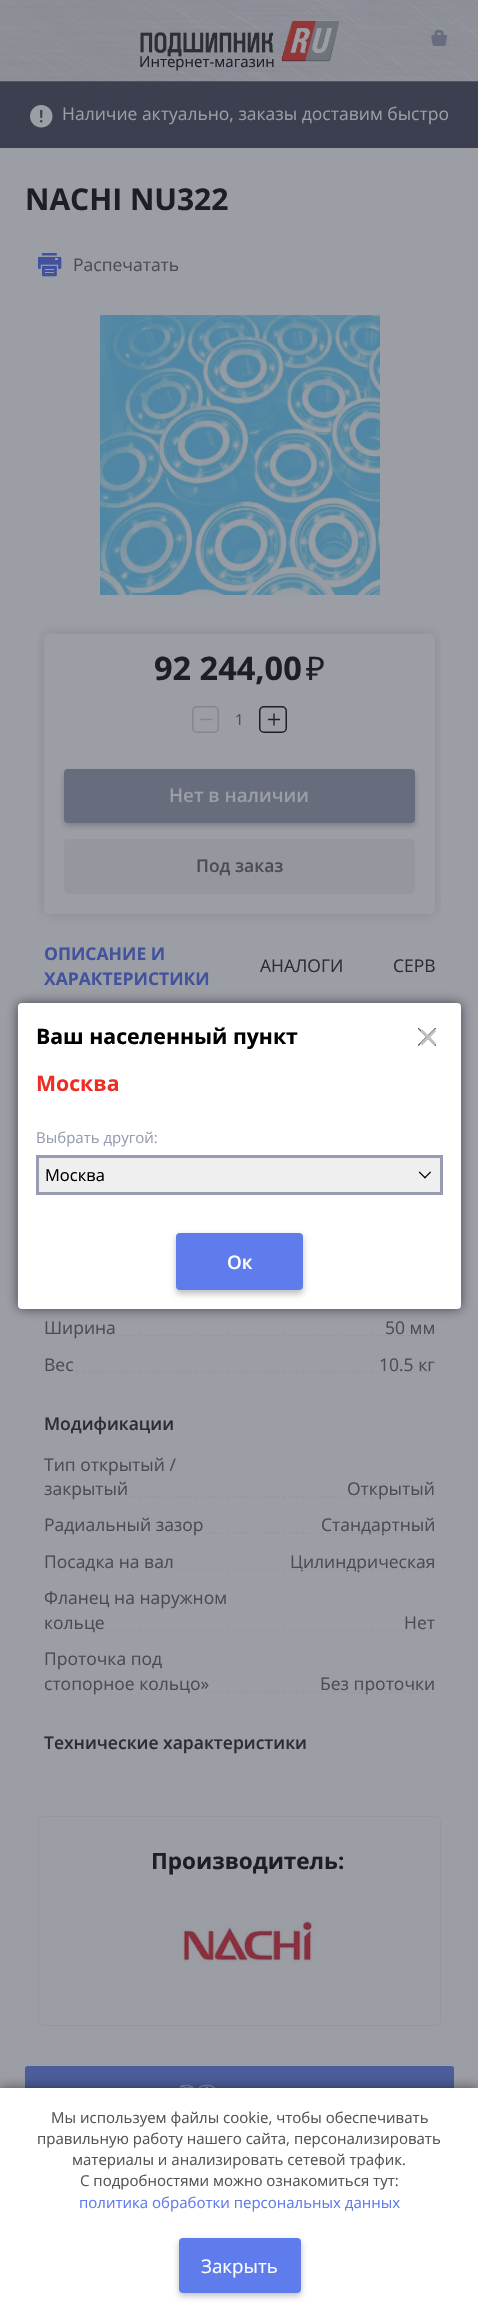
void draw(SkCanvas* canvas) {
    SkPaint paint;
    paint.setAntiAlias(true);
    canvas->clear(0xFF9C9EA5);
    paint.setColor(0xFF3B3F4F);
    canvas->drawRect(SkRect::MakeXYWH(0, 81, 478, 67), paint);
    canvas->drawImageRect(SkImages::DeferredFromEncodedData(SkData::MakeFromFileName("img1.png")), SkRect::MakeXYWH(0, 0, 478, 82), SkSamplingOptions());
    canvas->drawImageRect(SkImages::DeferredFromEncodedData(SkData::MakeFromFileName("img2.png")), SkRect::MakeXYWH(431, 30, 16, 16), SkSamplingOptions());
    canvas->drawImageRect(SkImages::DeferredFromEncodedData(SkData::MakeFromFileName("img3.png")), SkRect::MakeXYWH(140, 20, 200, 42), SkSamplingOptions());
    SkFont font1(fontMgr->matchFamilyStyle("Open Sans", SkFontStyle::Normal()), 15);
    font1.setSubpixel(true);
    paint.setColor(0xFF1D1F26);
    canvas->drawString("Интернет-магазин", 139, 67, font1, paint);
    canvas->drawImageRect(SkImages::DeferredFromEncodedData(SkData::MakeFromFileName("img4.png")), SkRect::MakeXYWH(30, 105, 23, 23), SkSamplingOptions());
    SkFont font2(fontMgr->matchFamilyStyle("Open Sans", SkFontStyle::Normal()), 17.5f);
    font2.setSubpixel(true);
    paint.setColor(0xFF9C9EA5);
    canvas->drawString("Наличие актуально, заказы доставим быстро", 62, 120, font2, paint);
    SkFont font3(fontMgr->matchFamilyStyle("Open Sans", SkFontStyle::Bold()), 30);
    font3.setSubpixel(true);
    paint.setColor(0xFF1D1F26);
    canvas->drawString("NACHI NU322", 25, 210, font3, paint);
    canvas->drawImageRect(SkImages::DeferredFromEncodedData(SkData::MakeFromFileName("img5.png")), SkRect::MakeXYWH(38, 253, 24, 24), SkSamplingOptions());
    paint.setColor(0xFF4A4C53);
    canvas->drawString("Распечатать", 73, 271, font2, paint);
    canvas->drawImageRect(SkImages::DeferredFromEncodedData(SkData::MakeFromFileName("img6.png")), SkRect::MakeXYWH(100, 315, 280, 280), SkSamplingOptions());
    canvas->save();
    canvas->clipRect(SkRect::MakeXYWH(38, 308, 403, 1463));
    canvas->clipPath(SkPathBuilder(SkPathFillType::kEvenOdd).moveTo(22, 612).lineTo(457, 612).lineTo(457, 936).lineTo(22, 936).close().moveTo(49, 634).lineTo(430, 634).cubicTo(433, 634, 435, 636, 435, 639).lineTo(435, 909).cubicTo(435, 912, 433, 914, 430, 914).lineTo(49, 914).cubicTo(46, 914, 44, 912, 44, 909).lineTo(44, 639).cubicTo(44, 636, 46, 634, 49, 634).close().detach(), true);
    paint.setColor(0x424A4E56);
    paint.setMaskFilter(SkMaskFilter::MakeBlur(kNormal_SkBlurStyle, 7));
    canvas->drawRoundRect(SkRect::MakeXYWH(44, 634, 391, 280), 5, 5, paint);
    paint.setMaskFilter(nullptr);
    canvas->restore();
    SkFont font4(fontMgr->matchFamilyStyle("Open Sans", SkFontStyle::Bold()), 32.5f);
    font4.setSubpixel(true);
    paint.setColor(0xFF1D1F26);
    canvas->drawString("92 244,00", 154, 680, font4, paint);
    SkFont font5(fontMgr->matchFamilyStyle("Noto Sans", SkFontStyle::Normal()), 32.5f);
    font5.setSubpixel(true);
    canvas->drawString("₽", 306, 680, font5, paint);
    paint.setStyle(SkPaint::kStroke_Style);
    paint.setStrokeWidth(1.5f);
    paint.setColor(0xFF85878E);
    canvas->drawRoundRect(SkRect::MakeXYWH(192.75f, 706.75f, 25.5f, 25.5f), 4.25f, 4.25f, paint);
    paint.setStrokeWidth(1.4f);
    paint.setStrokeCap(SkPaint::kRound_Cap);
    paint.setStrokeJoin(SkPaint::kRound_Join);
    canvas->drawPath(SkPathBuilder().moveTo(201, 719.5f).lineTo(212, 719.5f).detach(), paint);
    paint.setStyle(SkPaint::kFill_Style);
    paint.setColor(0xFF4A4C53);
    canvas->drawString("1", 235, 725, font1, paint);
    paint.setStyle(SkPaint::kStroke_Style);
    paint.setStrokeWidth(1.5f);
    paint.setStrokeCap(SkPaint::kButt_Cap);
    paint.setStrokeJoin(SkPaint::kMiter_Join);
    paint.setColor(0xFF1D1F26);
    canvas->drawRoundRect(SkRect::MakeXYWH(259.75f, 706.75f, 26.5f, 25.5f), 4.25f, 4.25f, paint);
    paint.setStrokeWidth(1.4f);
    paint.setStrokeCap(SkPaint::kRound_Cap);
    paint.setStrokeJoin(SkPaint::kRound_Join);
    paint.setColor(0xFF202229);
    canvas->drawPath(SkPathBuilder().moveTo(268.5f, 719.5f).lineTo(279.5f, 719.5f).moveTo(274, 714).lineTo(274, 725).detach(), paint);
    paint.setStyle(SkPaint::kFill_Style);
    paint.setColor(0x401D1F26);
    paint.setMaskFilter(SkMaskFilter::MakeBlur(kNormal_SkBlurStyle, 3));
    canvas->drawRoundRect(SkRect::MakeXYWH(64, 773, 351, 53), 4, 4, paint);
    paint.setMaskFilter(nullptr);
    paint.setColor(0xFF686D7E);
    canvas->drawRoundRect(SkRect::MakeXYWH(64, 769, 351, 54), 4, 4, paint);
    SkFont font6(fontMgr->matchFamilyStyle("Open Sans", SkFontStyle(600, SkFontStyle::kNormal_Width, SkFontStyle::kUpright_Slant)), 18.75f);
    font6.setSubpixel(true);
    paint.setColor(0xFF9C9EA5);
    canvas->drawString("Нет в наличии", 169, 802, font6, paint);
    paint.setColor(0xFF95979F);
    canvas->drawRoundRect(SkRect::MakeXYWH(64, 839, 351, 55), 5, 5, paint);
    SkFont font7(fontMgr->matchFamilyStyle("Open Sans", SkFontStyle(600, SkFontStyle::kNormal_Width, SkFontStyle::kUpright_Slant)), 17.5f);
    font7.setSubpixel(true);
    paint.setColor(0xFF4A4C53);
    canvas->drawString("Под заказ", 196, 872, font7, paint);
    SkFont font8(fontMgr->matchFamilyStyle("Open Sans", SkFontStyle::Bold()), 17.5f);
    font8.setSubpixel(true);
    paint.setColor(0xFF43529C);
    canvas->drawString("ОПИСАНИЕ И", 44, 960, font8, paint);
    canvas->drawString("ХАРАКТЕРИСТИКИ", 44, 985, font8, paint);
    paint.setColor(0xFF2D2D34);
    canvas->drawString("АНАЛОГИ", 260, 972, font2, paint);
    canvas->drawString("СЕРВ", 393, 972, font2, paint);
    paint.setColor(0xFF4A4C53);
    canvas->drawString("50 мм", 385, 1334, font2, paint);
    paint.setStyle(SkPaint::kStroke_Style);
    paint.setStrokeWidth(1.2f);
    paint.setStrokeCap(SkPaint::kButt_Cap);
    paint.setStrokeJoin(SkPaint::kMiter_Join);
    paint.setColor(0xFF95979F);
    paint.setPathEffect(SkDashPathEffect::Make({{3.75f, 2.52f}}, 0));
    canvas->drawPath(SkPathBuilder().moveTo(44, 1335.5f).lineTo(430, 1335.5f).detach(), paint);
    paint.setPathEffect(nullptr);
    paint.setStyle(SkPaint::kFill_Style);
    paint.setColor(0xFF9C9EA5);
    canvas->drawRect(SkRect::MakeXYWH(44, 1335, 71, 1), paint);
    paint.setColor(0xFF4A4C53);
    canvas->drawString("Ширина", 44, 1334, font2, paint);
    canvas->drawString("10.5 кг", 379, 1371, font2, paint);
    paint.setStyle(SkPaint::kStroke_Style);
    paint.setColor(0xFF95979F);
    paint.setPathEffect(SkDashPathEffect::Make({{3.75f, 2.52f}}, 0));
    canvas->drawPath(SkPathBuilder().moveTo(44, 1372).lineTo(430, 1372).detach(), paint);
    paint.setPathEffect(nullptr);
    paint.setStyle(SkPaint::kFill_Style);
    paint.setColor(0xFF9C9EA5);
    canvas->drawRect(SkRect::MakeXYWH(44, 1371, 29, 2), paint);
    paint.setColor(0xFF4A4C53);
    canvas->drawString("Вес", 44, 1371, font2, paint);
    paint.setColor(0xFF2D2D34);
    canvas->drawString("Модификации", 44, 1430, font7, paint);
    paint.setColor(0xFF4A4C53);
    canvas->drawString("Тип открытый /", 44, 1471, font2, paint);
    canvas->drawString("Открытый", 347, 1495, font2, paint);
    paint.setStyle(SkPaint::kStroke_Style);
    paint.setColor(0xFF95979F);
    paint.setPathEffect(SkDashPathEffect::Make({{3.75f, 2.52f}}, 0));
    canvas->drawPath(SkPathBuilder().moveTo(44, 1497).lineTo(430, 1497).detach(), paint);
    paint.setPathEffect(nullptr);
    paint.setStyle(SkPaint::kFill_Style);
    paint.setColor(0xFF9C9EA5);
    canvas->drawRect(SkRect::MakeXYWH(44, 1496, 84, 2), paint);
    paint.setColor(0xFF4A4C53);
    canvas->drawString("закрытый", 44, 1495, font2, paint);
    canvas->drawString("Стандартный", 321, 1531, font2, paint);
    paint.setStyle(SkPaint::kStroke_Style);
    paint.setColor(0xFF95979F);
    paint.setPathEffect(SkDashPathEffect::Make({{3.75f, 2.52f}}, 0));
    canvas->drawPath(SkPathBuilder().moveTo(44, 1533).lineTo(430, 1533).detach(), paint);
    paint.setPathEffect(nullptr);
    paint.setStyle(SkPaint::kFill_Style);
    paint.setColor(0xFF9C9EA5);
    canvas->drawRect(SkRect::MakeXYWH(44, 1532, 160, 2), paint);
    paint.setColor(0xFF4A4C53);
    canvas->drawString("Радиальный зазор", 44, 1531, font2, paint);
    canvas->drawString("Цилиндрическая", 290, 1568, font2, paint);
    paint.setStyle(SkPaint::kStroke_Style);
    paint.setColor(0xFF95979F);
    paint.setPathEffect(SkDashPathEffect::Make({{3.75f, 2.52f}}, 0));
    canvas->drawPath(SkPathBuilder().moveTo(44, 1569.5f).lineTo(430, 1569.5f).detach(), paint);
    paint.setPathEffect(nullptr);
    paint.setStyle(SkPaint::kFill_Style);
    paint.setColor(0xFF9C9EA5);
    canvas->drawRect(SkRect::MakeXYWH(44, 1569, 129, 1), paint);
    paint.setColor(0xFF4A4C53);
    canvas->drawString("Посадка на вал", 44, 1568, font2, paint);
    canvas->drawString("Фланец на наружном", 44, 1604, font2, paint);
    canvas->drawString("Нет", 404, 1629, font2, paint);
    paint.setStyle(SkPaint::kStroke_Style);
    paint.setColor(0xFF95979F);
    paint.setPathEffect(SkDashPathEffect::Make({{3.75f, 2.52f}}, 0));
    canvas->drawPath(SkPathBuilder().moveTo(44, 1630.5f).lineTo(430, 1630.5f).detach(), paint);
    paint.setPathEffect(nullptr);
    paint.setStyle(SkPaint::kFill_Style);
    paint.setColor(0xFF9C9EA5);
    canvas->drawRect(SkRect::MakeXYWH(44, 1630, 60, 1), paint);
    paint.setColor(0xFF4A4C53);
    canvas->drawString("кольце", 44, 1629, font2, paint);
    canvas->drawString("Проточка под", 44, 1665, font2, paint);
    canvas->drawString("Без проточки", 320, 1690, font2, paint);
    paint.setStyle(SkPaint::kStroke_Style);
    paint.setColor(0xFF95979F);
    paint.setPathEffect(SkDashPathEffect::Make({{3.75f, 2.52f}}, 0));
    canvas->drawPath(SkPathBuilder().moveTo(44, 1692).lineTo(430, 1692).detach(), paint);
    paint.setPathEffect(nullptr);
    paint.setStyle(SkPaint::kFill_Style);
    paint.setColor(0xFF9C9EA5);
    canvas->drawRect(SkRect::MakeXYWH(44, 1691, 165, 2), paint);
    paint.setColor(0xFF4A4C53);
    canvas->drawString("стопорное кольцо»", 44, 1690, font2, paint);
    paint.setColor(0xFF2D2D34);
    canvas->drawString("Технические характеристики", 44, 1749, font7, paint);
    paint.setStyle(SkPaint::kStroke_Style);
    paint.setStrokeWidth(1);
    paint.setColor(0xFF95979F);
    canvas->drawRoundRect(SkRect::MakeXYWH(38.5f, 1816.5f, 402, 209), 4.5f, 4.5f, paint);
    SkFont font9(fontMgr->matchFamilyStyle("Open Sans", SkFontStyle::Bold()), 22.5f);
    font9.setSubpixel(true);
    paint.setStyle(SkPaint::kFill_Style);
    paint.setColor(0xFF1D1F26);
    canvas->drawString("Производитель:", 151, 1869, font9, paint);
    canvas->drawImageRect(SkImages::DeferredFromEncodedData(SkData::MakeFromFileName("img7.png")), SkRect::MakeXYWH(179, 1918, 137, 47), SkSamplingOptions());
    paint.setColor(0xFF4C5D9C);
    canvas->drawRoundRect(SkRect::MakeXYWH(25, 2066, 429, 63), 2.5f, 2.5f, paint);
    canvas->drawImageRect(SkImages::DeferredFromEncodedData(SkData::MakeFromFileName("img8.png")), SkRect::MakeXYWH(180, 2084, 36, 4), SkSamplingOptions());
    paint.setColor(0xFF424551);
    paint.setMaskFilter(SkMaskFilter::MakeBlur(kNormal_SkBlurStyle, 6));
    canvas->drawRoundRect(SkRect::MakeXYWH(18, 1003, 443, 306), 4, 4, paint);
    paint.setMaskFilter(nullptr);
    paint.setColor(0xFFFFFFFF);
    canvas->drawRoundRect(SkRect::MakeXYWH(18, 1003, 443, 306), 4, 4, paint);
    SkFont font10(fontMgr->matchFamilyStyle("Open Sans", SkFontStyle::Bold()), 21.25f);
    font10.setSubpixel(true);
    paint.setColor(0xFF000000);
    canvas->drawString("Ваш населенный пункт", 36, 1044, font10, paint);
    canvas->drawImageRect(SkImages::DeferredFromEncodedData(SkData::MakeFromFileName("img9.png")), SkRect::MakeXYWH(418, 1028, 18, 18), SkSamplingOptions());
    SkFont font11(fontMgr->matchFamilyStyle("Liberation Sans", SkFontStyle::Normal()), 35);
    font11.setSubpixel(true);
    paint.setColor(0xFFC1C1C1);
    canvas->drawString("×", 418, 1049, font11, paint);
    paint.setColor(0xFFEE2E24);
    canvas->drawString("Москва", 36, 1091, font10, paint);
    paint.setColor(0xFF979DB1);
    canvas->drawString("Выбрать другой:", 36, 1143, font1, paint);
    paint.setColor(0xFFEFEFEF);
    canvas->drawRect(SkRect::MakeXYWH(37.5f, 1156.5f, 404, 37), paint);
    paint.setStyle(SkPaint::kStroke_Style);
    paint.setStrokeWidth(3);
    paint.setColor(0xFF979DB1);
    canvas->drawRect(SkRect::MakeXYWH(37.5f, 1156.5f, 404, 37), paint);
    SkFont font12(fontMgr->matchFamilyStyle("Open Sans", SkFontStyle::Normal()), 16.5f);
    font12.setSubpixel(true);
    paint.setStyle(SkPaint::kFill_Style);
    paint.setColor(0xFF000000);
    canvas->drawString("Москва", 45, 1181, font12, paint);
    canvas->drawImageRect(SkImages::DeferredFromEncodedData(SkData::MakeFromFileName("img10.png")), SkRect::MakeXYWH(418, 1171, 13, 8), SkSamplingOptions());
    paint.setColor(0x40000000);
    paint.setMaskFilter(SkMaskFilter::MakeBlur(kNormal_SkBlurStyle, 3));
    canvas->drawRoundRect(SkRect::MakeXYWH(176, 1236, 127, 58), 4, 4, paint);
    paint.setMaskFilter(nullptr);
    paint.setColor(0xFF5F7CED);
    canvas->drawRoundRect(SkRect::MakeXYWH(176, 1233, 127, 57), 4, 4, paint);
    paint.setColor(0xFFFFFFFF);
    canvas->drawString("Ок", 227, 1269, font6, paint);
    paint.setColor(0x80000000);
    paint.setMaskFilter(SkMaskFilter::MakeBlur(kNormal_SkBlurStyle, 6));
    canvas->drawRect(SkRect::MakeXYWH(0, 2088, 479, 223), paint);
    paint.setMaskFilter(nullptr);
    paint.setColor(0xFFFFFFFF);
    canvas->drawRect(SkRect::MakeXYWH(0, 2088, 478, 223), paint);
    paint.setColor(0xFF545454);
    canvas->drawString("Мы используем файлы cookie, чтобы обеспечивать", 51, 2123, font1, paint);
    canvas->drawString("правильную работу нашего сайта, персонализировать", 37, 2144, font1, paint);
    canvas->drawString("материалы и анализировать сетевой трафик.", 72, 2165, font1, paint);
    canvas->drawString("С подробностями можно ознакомиться тут:", 80, 2186, font1, paint);
    paint.setColor(0xFF5F7CED);
    canvas->drawString("политика обработки персональных данных", 79, 2208, font1, paint);
    paint.setColor(0x40000000);
    paint.setMaskFilter(SkMaskFilter::MakeBlur(kNormal_SkBlurStyle, 3));
    canvas->drawRoundRect(SkRect::MakeXYWH(179, 2241, 122, 55), 4, 4, paint);
    paint.setMaskFilter(nullptr);
    paint.setColor(0xFF5F7CED);
    canvas->drawRoundRect(SkRect::MakeXYWH(179, 2238, 122, 55), 4, 4, paint);
    SkFont font13(fontMgr->matchFamilyStyle("Open Sans", SkFontStyle::Normal()), 18.75f);
    font13.setSubpixel(true);
    paint.setColor(0xFFFFFFFF);
    canvas->drawString("Закрыть", 201, 2273, font13, paint);
}
